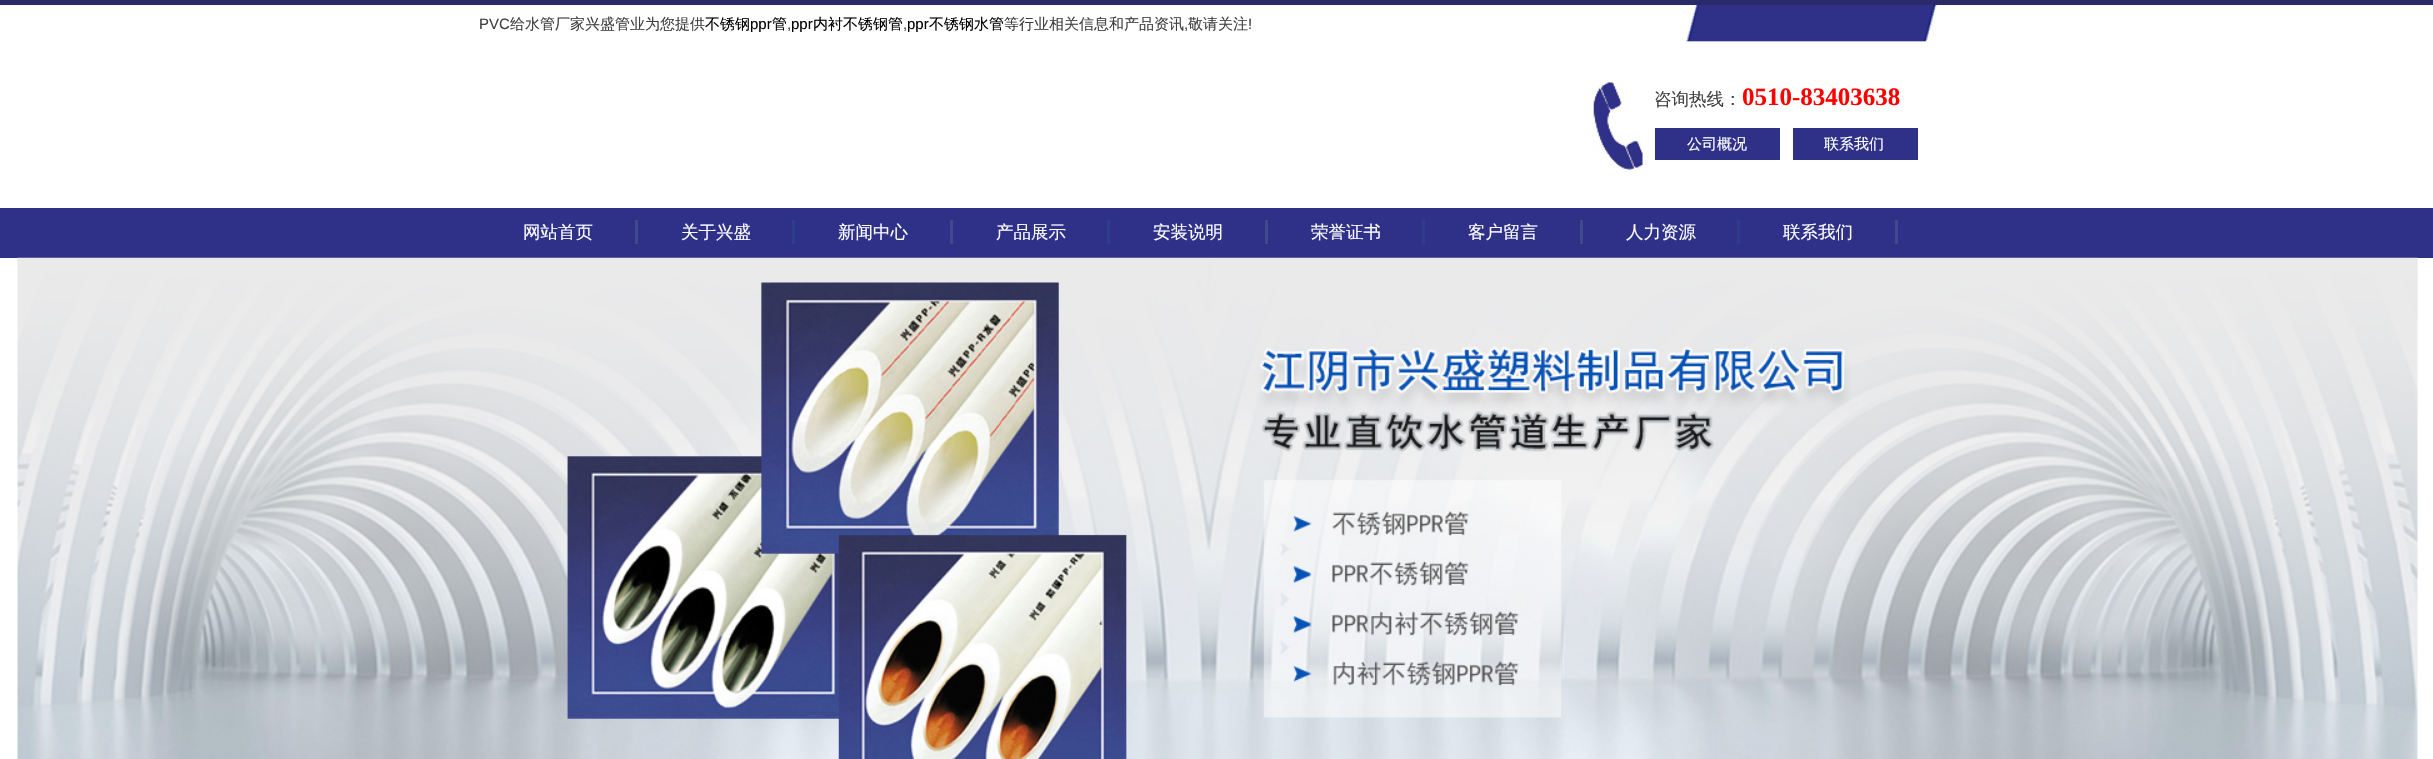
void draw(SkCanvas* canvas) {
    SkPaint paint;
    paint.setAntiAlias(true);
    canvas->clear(0xFFFFFFFF);
    paint.setColor(0xFF2A296A);
    canvas->drawRect(SkRect::MakeXYWH(0, 0, 2433, 5), paint);
    SkFont font1(fontMgr->matchFamilyStyle("Liberation Sans", SkFontStyle::Normal()), 15);
    font1.setSubpixel(true);
    paint.setColor(0xFF3F3F3F);
    canvas->drawString("PVC", 479, 29, font1, paint);
    SkFont font2(fontMgr->matchFamilyStyle("WenQuanYi Zen Hei", SkFontStyle(500, SkFontStyle::kNormal_Width, SkFontStyle::kUpright_Slant)), 15);
    font2.setSubpixel(true);
    canvas->drawString("给水管厂家兴盛管业为您提供", 510, 29, font2, paint);
    paint.setColor(0xFF000000);
    canvas->drawString("不锈钢", 705, 29, font2, paint);
    canvas->drawString("ppr", 750, 29, font1, paint);
    canvas->drawString("管", 772, 29, font2, paint);
    paint.setColor(0xFF3F3F3F);
    canvas->drawString(",", 787, 29, font1, paint);
    paint.setColor(0xFF000000);
    canvas->drawString("ppr", 791, 29, font1, paint);
    canvas->drawString("内衬不锈钢管", 813, 29, font2, paint);
    paint.setColor(0xFF3F3F3F);
    canvas->drawString(",", 903, 29, font1, paint);
    paint.setColor(0xFF000000);
    canvas->drawString("ppr", 907, 29, font1, paint);
    canvas->drawString("不锈钢水管", 929, 29, font2, paint);
    paint.setColor(0xFF3F3F3F);
    canvas->drawString("等行业相关信息和产品资讯", 1004, 29, font2, paint);
    canvas->drawString(",", 1184, 29, font1, paint);
    canvas->drawString("敬请关注", 1188, 29, font2, paint);
    canvas->drawString("!", 1248, 29, font1, paint);
    canvas->drawImageRect(SkImages::DeferredFromEncodedData(SkData::MakeFromFileName("img1.png")), SkRect::MakeXYWH(1686, 5, 251, 37), SkSamplingOptions());
    canvas->drawImageRect(SkImages::DeferredFromEncodedData(SkData::MakeFromFileName("img2.png")), SkRect::MakeXYWH(1592, 82, 51, 88), SkSamplingOptions());
    SkFont font3(fontMgr->matchFamilyStyle("WenQuanYi Zen Hei", SkFontStyle(500, SkFontStyle::kNormal_Width, SkFontStyle::kUpright_Slant)), 17.5f);
    font3.setSubpixel(true);
    canvas->drawString("咨询热线：", 1654, 105, font3, paint);
    SkFont font4(fontMgr->matchFamilyStyle("Liberation Serif", SkFontStyle::Bold()), 25);
    font4.setSubpixel(true);
    paint.setColor(0xFFFF0000);
    canvas->drawString("0510-83403638", 1742, 105, font4, paint);
    paint.setColor(0xFF2F3188);
    canvas->drawRect(SkRect::MakeXYWH(1655, 128, 125, 32), paint);
    paint.setColor(0xFFFFFFFF);
    canvas->drawString("公司概况", 1687, 149, font2, paint);
    paint.setColor(0xFF2F3188);
    canvas->drawRect(SkRect::MakeXYWH(1793, 128, 125, 32), paint);
    paint.setColor(0xFFFFFFFF);
    canvas->drawString("联系我们", 1824, 149, font2, paint);
    paint.setColor(0xFF2F3188);
    canvas->drawRect(SkRect::MakeXYWH(0, 208, 2433, 50), paint);
    paint.setColor(0xFF41488B);
    canvas->drawRect(SkRect::MakeXYWH(635, 220, 3, 24), paint);
    paint.setColor(0xFFFFFFFF);
    canvas->drawString("网站首页", 523, 238, font3, paint);
    paint.setColor(0xFF2D3E88);
    canvas->drawRect(SkRect::MakeXYWH(792, 220, 3, 24), paint);
    paint.setColor(0xFFFFFFFF);
    canvas->drawString("关于兴盛", 681, 238, font3, paint);
    paint.setColor(0xFF41488B);
    canvas->drawRect(SkRect::MakeXYWH(950, 220, 3, 24), paint);
    paint.setColor(0xFFFFFFFF);
    canvas->drawString("新闻中心", 838, 238, font3, paint);
    paint.setColor(0xFF2D3E88);
    canvas->drawRect(SkRect::MakeXYWH(1107, 220, 3, 24), paint);
    paint.setColor(0xFFFFFFFF);
    canvas->drawString("产品展示", 996, 238, font3, paint);
    paint.setColor(0xFF41488B);
    canvas->drawRect(SkRect::MakeXYWH(1265, 220, 3, 24), paint);
    paint.setColor(0xFFFFFFFF);
    canvas->drawString("安装说明", 1153, 238, font3, paint);
    paint.setColor(0xFF2D3E88);
    canvas->drawRect(SkRect::MakeXYWH(1422, 220, 3, 24), paint);
    paint.setColor(0xFFFFFFFF);
    canvas->drawString("荣誉证书", 1311, 238, font3, paint);
    paint.setColor(0xFF41488B);
    canvas->drawRect(SkRect::MakeXYWH(1580, 220, 3, 24), paint);
    paint.setColor(0xFFFFFFFF);
    canvas->drawString("客户留言", 1468, 238, font3, paint);
    paint.setColor(0xFF2D3E88);
    canvas->drawRect(SkRect::MakeXYWH(1737, 220, 3, 24), paint);
    paint.setColor(0xFFFFFFFF);
    canvas->drawString("人力资源", 1626, 238, font3, paint);
    paint.setColor(0xFF41488B);
    canvas->drawRect(SkRect::MakeXYWH(1895, 220, 3, 24), paint);
    paint.setColor(0xFFFFFFFF);
    canvas->drawString("联系我们", 1783, 238, font3, paint);
    canvas->drawImageRect(SkImages::DeferredFromEncodedData(SkData::MakeFromFileName("img3.png")), SkRect::MakeXYWH(17, 257, 2401, 502), SkSamplingOptions());
}
